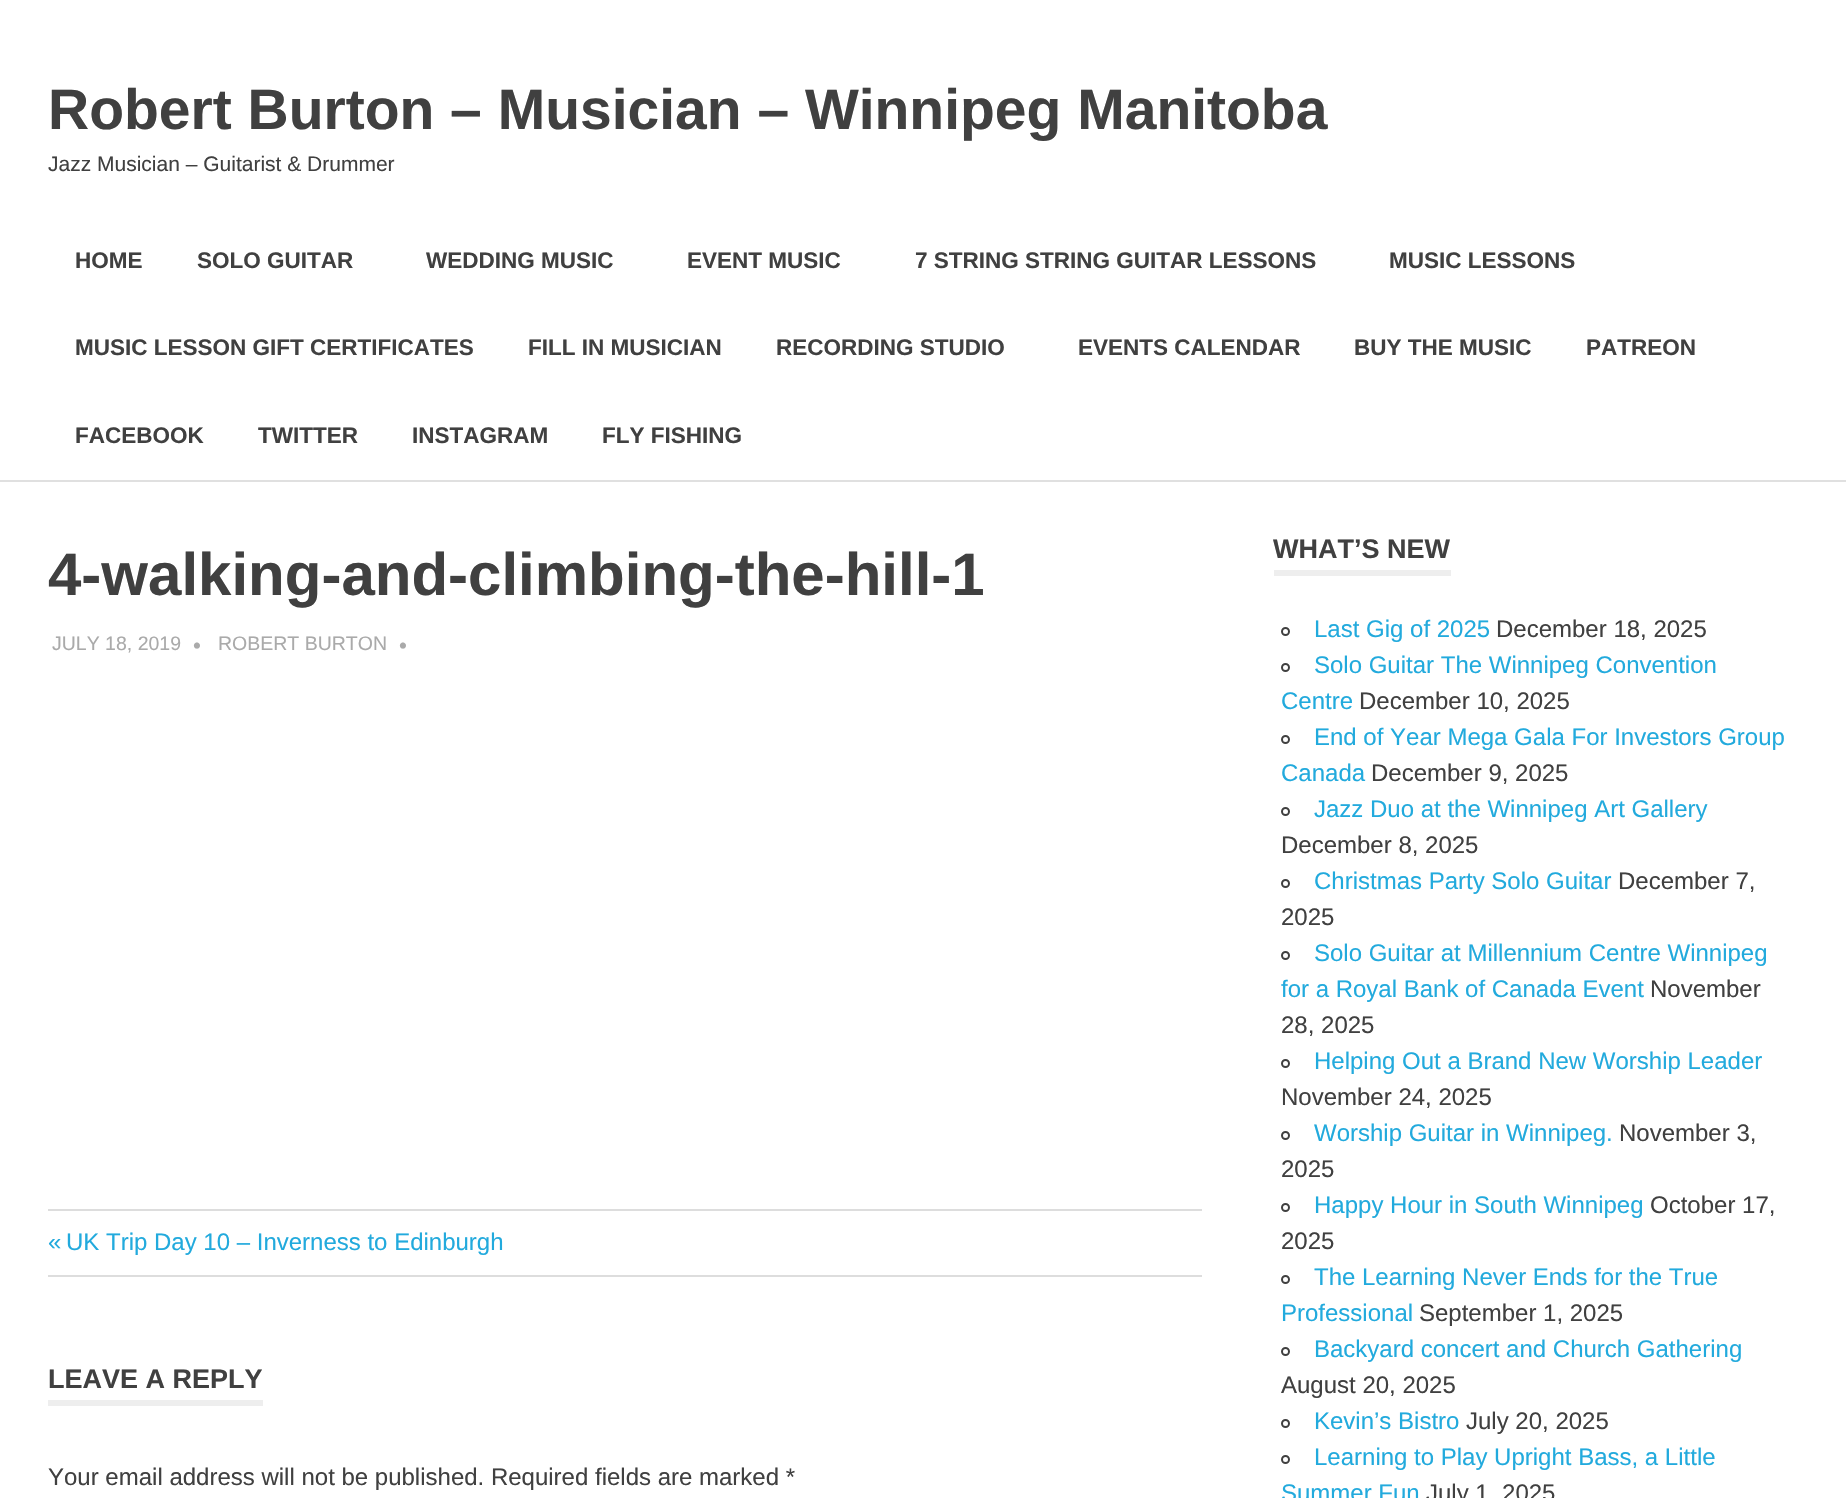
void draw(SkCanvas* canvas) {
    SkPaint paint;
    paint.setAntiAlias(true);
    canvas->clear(0xFFFFFFFF);
    paint.setColor(0xFFE0E0E0);
    canvas->drawRect(SkRect::MakeXYWH(0, 480, 1846, 2), paint);
    SkFont font1(fontMgr->matchFamilyStyle("Liberation Sans", SkFontStyle::Bold()), 57);
    font1.setSubpixel(true);
    paint.setColor(0xFF404040);
    canvas->drawString("Robert Burton – Musician – Winnipeg Manitoba", 48, 129, font1, paint);
    SkFont font2(fontMgr->matchFamilyStyle("Liberation Sans", SkFontStyle::Normal()), 21);
    font2.setSubpixel(true);
    canvas->drawString("Jazz Musician – Guitarist & Drummer", 48, 171, font2, paint);
    SkFont font3(fontMgr->matchFamilyStyle("Liberation Sans", SkFontStyle::Bold()), 22.5f);
    font3.setSubpixel(true);
    canvas->drawString("HOME", 75, 268, font3, paint);
    canvas->drawString("SOLO GUITAR", 197, 268, font3, paint);
    canvas->drawString("WEDDING MUSIC", 426, 268, font3, paint);
    canvas->drawString("EVENT MUSIC", 687, 268, font3, paint);
    canvas->drawString("7 STRING STRING GUITAR LESSONS", 915, 268, font3, paint);
    canvas->drawString("MUSIC LESSONS", 1389, 268, font3, paint);
    canvas->drawString("MUSIC LESSON GIFT CERTIFICATES", 75, 355, font3, paint);
    canvas->drawString("FILL IN MUSICIAN", 528, 355, font3, paint);
    canvas->drawString("RECORDING STUDIO", 776, 355, font3, paint);
    canvas->drawString("EVENTS CALENDAR", 1078, 355, font3, paint);
    canvas->drawString("BUY THE MUSIC", 1354, 355, font3, paint);
    canvas->drawString("PATREON", 1586, 355, font3, paint);
    canvas->drawString("FACEBOOK", 75, 443, font3, paint);
    canvas->drawString("TWITTER", 258, 443, font3, paint);
    canvas->drawString("INSTAGRAM", 412, 443, font3, paint);
    canvas->drawString("FLY FISHING", 602, 443, font3, paint);
    SkFont font4(fontMgr->matchFamilyStyle("Liberation Sans", SkFontStyle::Bold()), 60);
    font4.setSubpixel(true);
    canvas->drawString("4-walking-and-climbing-the-hill-1", 48, 595, font4, paint);
    SkFont font5(fontMgr->matchFamilyStyle("Liberation Sans", SkFontStyle::Normal()), 19.5f);
    font5.setSubpixel(true);
    paint.setColor(0xFFAAAAAA);
    canvas->drawString("JULY 18, 2019", 52, 650, font5, paint);
    SkFont font6(fontMgr->matchFamilyStyle("Liberation Sans", SkFontStyle::Normal()), 22.5f);
    font6.setSubpixel(true);
    canvas->drawString("•", 193, 653, font6, paint);
    canvas->drawString("ROBERT BURTON", 218, 650, font5, paint);
    canvas->drawString("•", 399, 653, font6, paint);
    paint.setColor(0xFFDDDDDD);
    canvas->drawRect(SkRect::MakeXYWH(48, 1209, 1154, 2), paint);
    canvas->drawRect(SkRect::MakeXYWH(48, 1275, 1154, 2), paint);
    SkFont font7(fontMgr->matchFamilyStyle("Liberation Sans", SkFontStyle::Normal()), 24);
    font7.setSubpixel(true);
    paint.setColor(0xFF22AADD);
    canvas->drawString("«", 48, 1250, font7, paint);
    canvas->drawString("UK Trip Day 10 – Inverness to Edinburgh", 66, 1250, font7, paint);
    paint.setColor(0xFFEEEEEE);
    canvas->drawRect(SkRect::MakeXYWH(48, 1400, 215, 6), paint);
    SkFont font8(fontMgr->matchFamilyStyle("Liberation Sans", SkFontStyle::Bold()), 27);
    font8.setSubpixel(true);
    paint.setColor(0xFF404040);
    canvas->drawString("LEAVE A REPLY", 48, 1388, font8, paint);
    canvas->drawString("Your email address will not be published. Required fields are marked *", 48, 1485, font7, paint);
    paint.setColor(0xFFEEEEEE);
    canvas->drawRect(SkRect::MakeXYWH(1274, 570, 177, 6), paint);
    paint.setColor(0xFF404040);
    canvas->drawString("WHAT’S NEW", 1273, 558, font8, paint);
    paint.setStyle(SkPaint::kStroke_Style);
    paint.setStrokeWidth(2);
    canvas->drawCircle(1285.5f, 631.5f, 3.5f, paint);
    paint.setStyle(SkPaint::kFill_Style);
    paint.setColor(0xFF22AADD);
    canvas->drawString("Last Gig of 2025", 1314, 637, font7, paint);
    paint.setColor(0xFF404040);
    canvas->drawString("December 18, 2025", 1496, 637, font7, paint);
    paint.setStyle(SkPaint::kStroke_Style);
    canvas->drawCircle(1285.5f, 667.5f, 3.5f, paint);
    paint.setStyle(SkPaint::kFill_Style);
    paint.setColor(0xFF22AADD);
    canvas->drawString("Solo Guitar The Winnipeg Convention", 1314, 673, font7, paint);
    canvas->drawString("Centre", 1281, 709, font7, paint);
    paint.setColor(0xFF404040);
    canvas->drawString("December 10, 2025", 1359, 709, font7, paint);
    paint.setStyle(SkPaint::kStroke_Style);
    canvas->drawCircle(1285.5f, 739.5f, 3.5f, paint);
    paint.setStyle(SkPaint::kFill_Style);
    paint.setColor(0xFF22AADD);
    canvas->drawString("End of Year Mega Gala For Investors Group", 1314, 745, font7, paint);
    canvas->drawString("Canada", 1281, 781, font7, paint);
    paint.setColor(0xFF404040);
    canvas->drawString("December 9, 2025", 1371, 781, font7, paint);
    paint.setStyle(SkPaint::kStroke_Style);
    canvas->drawCircle(1285.5f, 811.5f, 3.5f, paint);
    paint.setStyle(SkPaint::kFill_Style);
    paint.setColor(0xFF22AADD);
    canvas->drawString("Jazz Duo at the Winnipeg Art Gallery", 1314, 817, font7, paint);
    paint.setColor(0xFF404040);
    canvas->drawString("December 8, 2025", 1281, 853, font7, paint);
    paint.setStyle(SkPaint::kStroke_Style);
    canvas->drawCircle(1285.5f, 883.5f, 3.5f, paint);
    paint.setStyle(SkPaint::kFill_Style);
    paint.setColor(0xFF22AADD);
    canvas->drawString("Christmas Party Solo Guitar", 1314, 889, font7, paint);
    paint.setColor(0xFF404040);
    canvas->drawString("December 7,", 1618, 889, font7, paint);
    canvas->drawString("2025", 1281, 925, font7, paint);
    paint.setStyle(SkPaint::kStroke_Style);
    canvas->drawCircle(1285.5f, 955.5f, 3.5f, paint);
    paint.setStyle(SkPaint::kFill_Style);
    paint.setColor(0xFF22AADD);
    canvas->drawString("Solo Guitar at Millennium Centre Winnipeg", 1314, 961, font7, paint);
    canvas->drawString("for a Royal Bank of Canada Event", 1281, 997, font7, paint);
    paint.setColor(0xFF404040);
    canvas->drawString("November", 1650, 997, font7, paint);
    canvas->drawString("28, 2025", 1281, 1033, font7, paint);
    paint.setStyle(SkPaint::kStroke_Style);
    canvas->drawCircle(1285.5f, 1063.5f, 3.5f, paint);
    paint.setStyle(SkPaint::kFill_Style);
    paint.setColor(0xFF22AADD);
    canvas->drawString("Helping Out a Brand New Worship Leader", 1314, 1069, font7, paint);
    paint.setColor(0xFF404040);
    canvas->drawString("November 24, 2025", 1281, 1105, font7, paint);
    paint.setStyle(SkPaint::kStroke_Style);
    canvas->drawCircle(1285.5f, 1135.5f, 3.5f, paint);
    paint.setStyle(SkPaint::kFill_Style);
    paint.setColor(0xFF22AADD);
    canvas->drawString("Worship Guitar in Winnipeg.", 1314, 1141, font7, paint);
    paint.setColor(0xFF404040);
    canvas->drawString("November 3,", 1619, 1141, font7, paint);
    canvas->drawString("2025", 1281, 1177, font7, paint);
    paint.setStyle(SkPaint::kStroke_Style);
    canvas->drawCircle(1285.5f, 1207.5f, 3.5f, paint);
    paint.setStyle(SkPaint::kFill_Style);
    paint.setColor(0xFF22AADD);
    canvas->drawString("Happy Hour in South Winnipeg", 1314, 1213, font7, paint);
    paint.setColor(0xFF404040);
    canvas->drawString("October 17,", 1650, 1213, font7, paint);
    canvas->drawString("2025", 1281, 1249, font7, paint);
    paint.setStyle(SkPaint::kStroke_Style);
    canvas->drawCircle(1285.5f, 1279.5f, 3.5f, paint);
    paint.setStyle(SkPaint::kFill_Style);
    paint.setColor(0xFF22AADD);
    canvas->drawString("The Learning Never Ends for the True", 1314, 1285, font7, paint);
    canvas->drawString("Professional", 1281, 1321, font7, paint);
    paint.setColor(0xFF404040);
    canvas->drawString("September 1, 2025", 1419, 1321, font7, paint);
    paint.setStyle(SkPaint::kStroke_Style);
    canvas->drawCircle(1285.5f, 1351.5f, 3.5f, paint);
    paint.setStyle(SkPaint::kFill_Style);
    paint.setColor(0xFF22AADD);
    canvas->drawString("Backyard concert and Church Gathering", 1314, 1357, font7, paint);
    paint.setColor(0xFF404040);
    canvas->drawString("August 20, 2025", 1281, 1393, font7, paint);
    paint.setStyle(SkPaint::kStroke_Style);
    canvas->drawCircle(1285.5f, 1423.5f, 3.5f, paint);
    paint.setStyle(SkPaint::kFill_Style);
    paint.setColor(0xFF22AADD);
    canvas->drawString("Kevin’s Bistro", 1314, 1429, font7, paint);
    paint.setColor(0xFF404040);
    canvas->drawString("July 20, 2025", 1466, 1429, font7, paint);
    paint.setStyle(SkPaint::kStroke_Style);
    canvas->drawCircle(1285.5f, 1459.5f, 3.5f, paint);
    paint.setStyle(SkPaint::kFill_Style);
    paint.setColor(0xFF22AADD);
    canvas->drawString("Learning to Play Upright Bass, a Little", 1314, 1465, font7, paint);
    canvas->drawString("Summer Fun", 1281, 1501, font7, paint);
    paint.setColor(0xFF404040);
    canvas->drawString("July 1, 2025", 1426, 1501, font7, paint);
}
